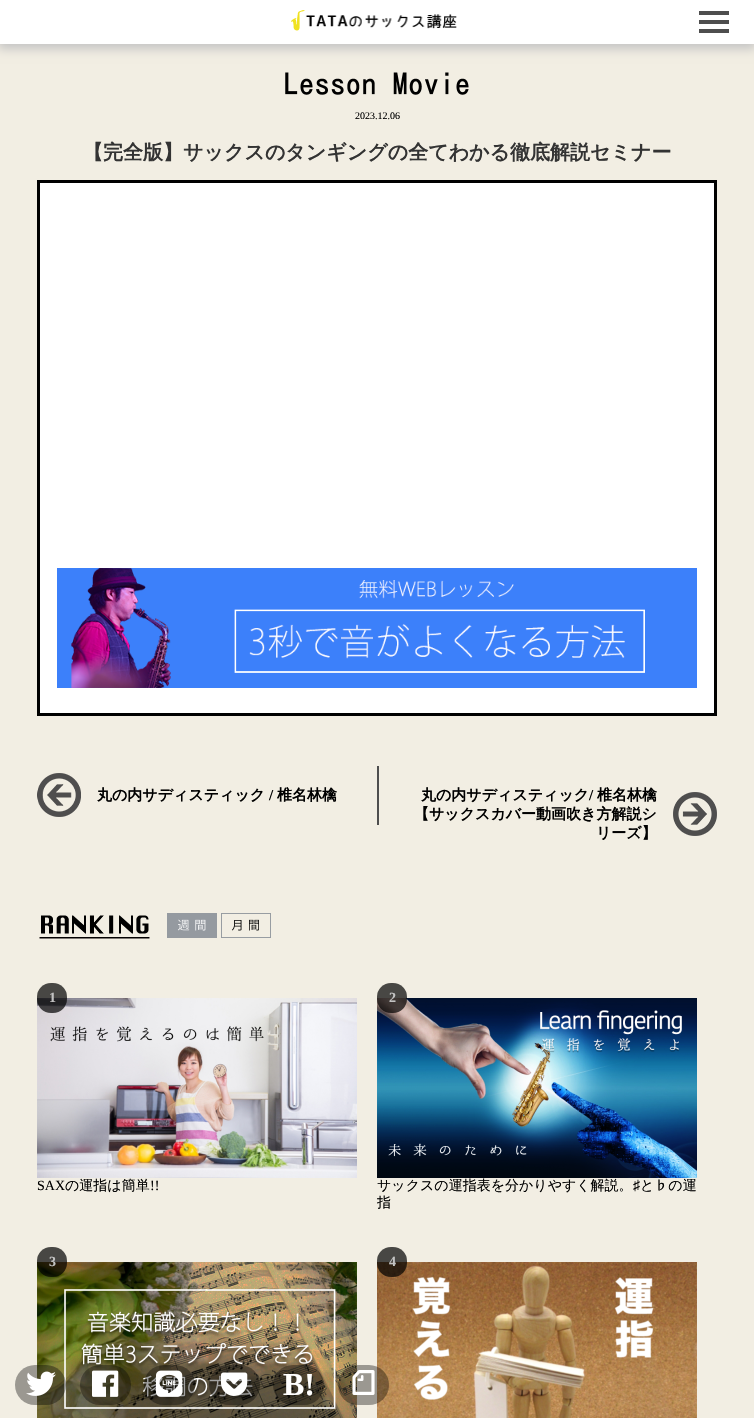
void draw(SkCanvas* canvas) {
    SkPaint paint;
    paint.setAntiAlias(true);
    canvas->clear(0xFFF2EEE3);
    paint.setColor(0xFFC4C4C4);
    paint.setMaskFilter(SkMaskFilter::MakeBlur(kNormal_SkBlurStyle, 5));
    canvas->drawRect(SkRect::MakeXYWH(-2, 1, 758, 48), paint);
    paint.setMaskFilter(nullptr);
    paint.setColor(0xFFFFFFFF);
    canvas->drawRect(SkRect::MakeXYWH(0, 0, 754, 44), paint);
    canvas->drawImageRect(SkImages::DeferredFromEncodedData(SkData::MakeFromFileName("img1.png")), SkRect::MakeXYWH(291, 10, 166, 21), SkSamplingOptions());
    paint.setColor(0xFF4E4E4E);
    canvas->drawRect(SkRect::MakeXYWH(699, 11, 30, 4), paint);
    canvas->drawRect(SkRect::MakeXYWH(699, 20, 30, 4), paint);
    canvas->drawRect(SkRect::MakeXYWH(699, 29, 30, 4), paint);
    canvas->drawImageRect(SkImages::DeferredFromEncodedData(SkData::MakeFromFileName("img2.png")), SkRect::MakeXYWH(285, 72, 184, 23), SkSamplingOptions());
    SkFont font1(fontMgr->matchFamilyStyle("Liberation Serif", SkFontStyle::Normal()), 10);
    font1.setSubpixel(true);
    paint.setColor(0xFF000000);
    canvas->drawString("2023.12.06", 355, 119, font1, paint);
    SkFont font2(fontMgr->matchFamilyStyle("WenQuanYi Zen Hei", SkFontStyle::Bold()), 20);
    font2.setSubpixel(true);
    paint.setColor(0xFF333333);
    canvas->drawString("【完全版】サックスのタンギングの全てわかる徹底解説セミナー", 83, 159, font2, paint);
    paint.setColor(0xFFFFFFFF);
    canvas->drawRect(SkRect::MakeXYWH(38.5f, 181.5f, 677, 533), paint);
    paint.setStyle(SkPaint::kStroke_Style);
    paint.setStrokeWidth(3);
    paint.setColor(0xFF000000);
    canvas->drawRect(SkRect::MakeXYWH(38.5f, 181.5f, 677, 533), paint);
    canvas->drawImageRect(SkImages::DeferredFromEncodedData(SkData::MakeFromFileName("img3.png")), SkRect::MakeXYWH(57, 568, 640, 120), SkSamplingOptions());
    paint.setStyle(SkPaint::kFill_Style);
    paint.setColor(0xFF4E4E4E);
    canvas->drawRect(SkRect::MakeXYWH(377, 766, 2, 59), paint);
    canvas->drawImageRect(SkImages::DeferredFromEncodedData(SkData::MakeFromFileName("img4.png")), SkRect::MakeXYWH(37, 773, 44, 44), SkSamplingOptions());
    SkFont font3(fontMgr->matchFamilyStyle("WenQuanYi Zen Hei", SkFontStyle::Bold()), 15);
    font3.setSubpixel(true);
    paint.setColor(0xFF000000);
    canvas->drawString("丸の内サディスティック", 97, 800, font3, paint);
    SkFont font4(fontMgr->matchFamilyStyle("Liberation Serif", SkFontStyle::Bold()), 15);
    font4.setSubpixel(true);
    canvas->drawString("/", 269, 800, font4, paint);
    canvas->drawString("椎名林檎", 277, 800, font3, paint);
    canvas->drawImageRect(SkImages::DeferredFromEncodedData(SkData::MakeFromFileName("img5.png")), SkRect::MakeXYWH(673, 792, 44, 44), SkSamplingOptions());
    canvas->drawString("丸の内サディスティック", 421, 800, font3, paint);
    canvas->drawString("/", 589, 800, font4, paint);
    canvas->drawString("椎名林檎", 597, 800, font3, paint);
    canvas->drawString("【サックスカバー動画吹き方解説シ", 414, 819, font3, paint);
    canvas->drawString("リーズ】", 596, 838, font3, paint);
    canvas->drawImageRect(SkImages::DeferredFromEncodedData(SkData::MakeFromFileName("img6.png")), SkRect::MakeXYWH(39, 915, 111, 24), SkSamplingOptions());
    canvas->drawImageRect(SkImages::DeferredFromEncodedData(SkData::MakeFromFileName("img7.png")), SkRect::MakeXYWH(167, 913, 50, 25), SkSamplingOptions());
    canvas->drawImageRect(SkImages::DeferredFromEncodedData(SkData::MakeFromFileName("img8.png")), SkRect::MakeXYWH(221, 913, 50, 25), SkSamplingOptions());
    canvas->drawImageRect(SkImages::DeferredFromEncodedData(SkData::MakeFromFileName("img9.png")), SkRect::MakeXYWH(37, 998, 320, 180), SkSamplingOptions());
    paint.setColor(0xB3000000);
    canvas->drawRoundRect(SkRect::MakeXYWH(37, 983, 30, 30), 14, 14, paint);
    SkFont font5(fontMgr->matchFamilyStyle("Liberation Serif", SkFontStyle::Bold()), 14);
    font5.setSubpixel(true);
    paint.setColor(0xFFC3C3C3);
    canvas->drawString("1", 49, 1002, font5, paint);
    SkFont font6(fontMgr->matchFamilyStyle("Liberation Serif", SkFontStyle::Normal()), 14);
    font6.setSubpixel(true);
    paint.setColor(0xFF000000);
    canvas->drawString("SAX", 37, 1190, font6, paint);
    SkFont font7(fontMgr->matchFamilyStyle("WenQuanYi Zen Hei", SkFontStyle(500, SkFontStyle::kNormal_Width, SkFontStyle::kUpright_Slant)), 14);
    font7.setSubpixel(true);
    canvas->drawString("の運指は簡単", 65, 1190, font7, paint);
    canvas->drawString("!!", 150, 1190, font6, paint);
    canvas->drawImageRect(SkImages::DeferredFromEncodedData(SkData::MakeFromFileName("img10.png")), SkRect::MakeXYWH(377, 998, 320, 180), SkSamplingOptions());
    paint.setColor(0xB3000000);
    canvas->drawRoundRect(SkRect::MakeXYWH(377, 983, 30, 30), 14, 14, paint);
    paint.setColor(0xFFC3C3C3);
    canvas->drawString("2", 389, 1002, font5, paint);
    paint.setColor(0xFF000000);
    canvas->drawString("サックスの運指表を分かりやすく解説。", 377, 1190, font7, paint);
    canvas->drawString("♯", 633, 1190, font6, paint);
    canvas->drawString("と♭の運", 640, 1190, font7, paint);
    canvas->drawString("指", 377, 1207, font7, paint);
    canvas->drawImageRect(SkImages::DeferredFromEncodedData(SkData::MakeFromFileName("img11.png")), SkRect::MakeXYWH(37, 1262, 320, 156), SkSamplingOptions());
    paint.setColor(0xB3000000);
    canvas->drawRoundRect(SkRect::MakeXYWH(37, 1247, 30, 30), 14, 14, paint);
    paint.setColor(0xFFC3C3C3);
    canvas->drawString("3", 49, 1266, font5, paint);
    canvas->drawImageRect(SkImages::DeferredFromEncodedData(SkData::MakeFromFileName("img12.png")), SkRect::MakeXYWH(377, 1262, 320, 156), SkSamplingOptions());
    paint.setColor(0xB3000000);
    canvas->drawRoundRect(SkRect::MakeXYWH(377, 1247, 30, 30), 14, 14, paint);
    paint.setColor(0xFFC3C3C3);
    canvas->drawString("4", 389, 1266, font5, paint);
    paint.setColor(0x5C000000);
    canvas->drawRoundRect(SkRect::MakeXYWH(15, 1365, 51, 40), 20, 20, paint);
    canvas->drawImageRect(SkImages::DeferredFromEncodedData(SkData::MakeFromFileName("img13.png")), SkRect::MakeXYWH(26, 1371, 30, 25), SkSamplingOptions());
    canvas->drawRoundRect(SkRect::MakeXYWH(80, 1365, 51, 40), 20, 20, paint);
    canvas->drawImageRect(SkImages::DeferredFromEncodedData(SkData::MakeFromFileName("img14.png")), SkRect::MakeXYWH(92, 1370, 27, 27), SkSamplingOptions());
    canvas->drawRoundRect(SkRect::MakeXYWH(144, 1365, 51, 40), 20, 20, paint);
    canvas->drawImageRect(SkImages::DeferredFromEncodedData(SkData::MakeFromFileName("img15.png")), SkRect::MakeXYWH(156, 1370, 27, 27), SkSamplingOptions());
    canvas->drawRoundRect(SkRect::MakeXYWH(209, 1365, 51, 40), 20, 20, paint);
    canvas->drawImageRect(SkImages::DeferredFromEncodedData(SkData::MakeFromFileName("img16.png")), SkRect::MakeXYWH(221, 1372, 27, 24), SkSamplingOptions());
    canvas->drawRoundRect(SkRect::MakeXYWH(273, 1365, 51, 40), 20, 20, paint);
    SkFont font8(fontMgr->matchFamilyStyle("Liberation Serif", SkFontStyle::Bold()), 32);
    font8.setSubpixel(true);
    paint.setColor(0xFFFFFFFF);
    canvas->drawString("B!", 283, 1395, font8, paint);
    paint.setColor(0x5C000000);
    canvas->drawRoundRect(SkRect::MakeXYWH(338, 1365, 51, 40), 20, 20, paint);
    canvas->drawImageRect(SkImages::DeferredFromEncodedData(SkData::MakeFromFileName("img17.png")), SkRect::MakeXYWH(352, 1370, 23, 25), SkSamplingOptions());
}
